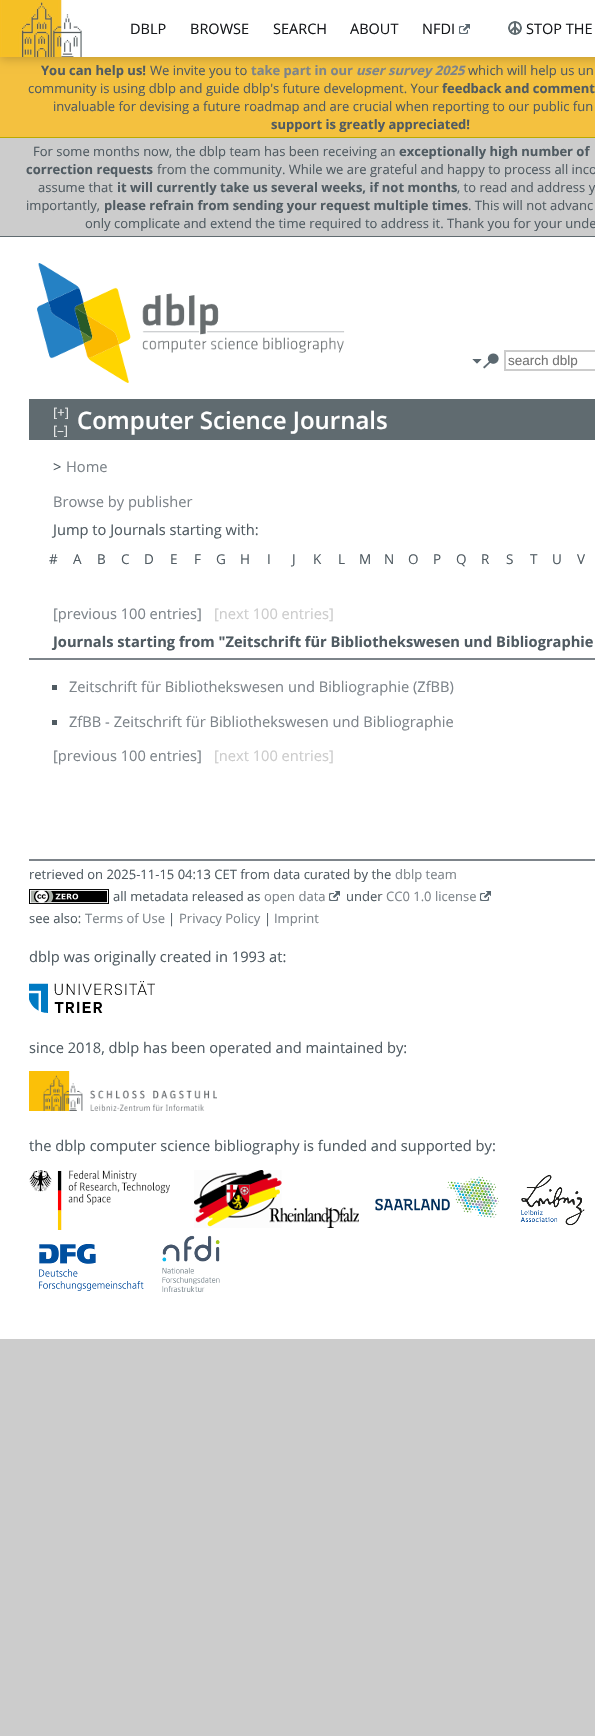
void draw(SkCanvas* canvas) {
    SkPaint paint;
    paint.setAntiAlias(true);
    canvas->clear(0xFFCCCCCC);
    paint.setColor(0xFFF4C13F);
    canvas->drawRect(SkRect::MakeXYWH(0, 57, 595, 80), paint);
    paint.setColor(0x33000000);
    paint.setMaskFilter(SkMaskFilter::MakeBlur(kNormal_SkBlurStyle, 5));
    canvas->drawRect(SkRect::MakeXYWH(0, 2, 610, 57), paint);
    paint.setMaskFilter(nullptr);
    paint.setColor(0xFFFFFFFF);
    canvas->drawRect(SkRect::MakeXYWH(82, 0, 513, 57), paint);
    canvas->drawImageRect(SkImages::DeferredFromEncodedData(SkData::MakeFromFileName("img1.png")), SkRect::MakeXYWH(0, 0, 82, 57), SkSamplingOptions());
    SkFont font1(fontMgr->matchFamilyStyle("Open Sans", SkFontStyle::Normal()), 14.5f);
    font1.setSubpixel(true);
    paint.setColor(0xFF16181B);
    canvas->drawString("DBLP", 130, 34, font1, paint);
    canvas->drawString("BROWSE", 190, 34, font1, paint);
    canvas->drawString("SEARCH", 273, 34, font1, paint);
    canvas->drawString("ABOUT", 350, 34, font1, paint);
    canvas->drawString("NFDI", 422, 34, font1, paint);
    canvas->drawImageRect(SkImages::DeferredFromEncodedData(SkData::MakeFromFileName("img2.png")), SkRect::MakeXYWH(458, 24, 12, 10), SkSamplingOptions());
    canvas->drawImageRect(SkImages::DeferredFromEncodedData(SkData::MakeFromFileName("img3.png")), SkRect::MakeXYWH(508, 21, 14, 14), SkSamplingOptions());
    canvas->drawString("STOP THE", 526, 34, font1, paint);
    paint.setColor(0xFFBBAA00);
    canvas->drawRect(SkRect::MakeXYWH(0, 137, 595, 1), paint);
    SkFont font2(fontMgr->matchFamilyStyle("Open Sans", SkFontStyle::Bold()), 13);
    font2.setSubpixel(true);
    paint.setColor(0xFF505B62);
    canvas->drawString("You can help us!", 41, 75, font2, paint);
    SkFont font3(fontMgr->matchFamilyStyle("Open Sans", SkFontStyle::Normal()), 13);
    font3.setSubpixel(true);
    canvas->drawString("We invite you to", 150, 75, font3, paint);
    paint.setColor(0xFF7D848A);
    canvas->drawString("take part in our", 251, 75, font2, paint);
    SkFont font4(fontMgr->matchFamilyStyle("Open Sans", SkFontStyle::BoldItalic()), 13);
    font4.setSubpixel(true);
    canvas->drawString("user survey 2025", 356, 75, font4, paint);
    paint.setColor(0xFF505B62);
    canvas->drawString("which will help us un", 468, 75, font3, paint);
    canvas->drawString("community is using dblp and guide dblp's future development. Your", 28, 93, font3, paint);
    canvas->drawString("feedback and comment", 442, 93, font2, paint);
    canvas->drawString("invaluable for devising a future roadmap and are crucial when reporting to our public fun", 53, 111, font3, paint);
    canvas->drawString("support is greatly appreciated!", 271, 129, font2, paint);
    paint.setColor(0xFF606B70);
    canvas->drawRect(SkRect::MakeXYWH(0, 236, 595, 1), paint);
    paint.setColor(0xFF505B62);
    canvas->drawString("For some months now, the dblp team has been receiving an", 33, 156, font3, paint);
    canvas->drawString("exceptionally high number of", 399, 156, font2, paint);
    canvas->drawString("correction requests", 26, 174, font2, paint);
    canvas->drawString("from the community. While we are grateful and happy to process all inco", 157, 174, font3, paint);
    canvas->drawString("assume that", 38, 192, font3, paint);
    canvas->drawString("it will currently take us several weeks, if not months", 117, 192, font2, paint);
    canvas->drawString(", to read and address y", 457, 192, font3, paint);
    canvas->drawString("importantly,", 26, 210, font3, paint);
    canvas->drawString("please refrain from sending your request multiple times", 104, 210, font2, paint);
    canvas->drawString(". This will not advanc", 468, 210, font3, paint);
    canvas->drawString("only complicate and extend the time required to address it. Thank you for your unde", 85, 228, font3, paint);
    paint.setColor(0xFFFFFFFF);
    canvas->drawRect(SkRect::MakeXYWH(0, 237, 595, 1102), paint);
    canvas->drawImageRect(SkImages::DeferredFromEncodedData(SkData::MakeFromFileName("img4.png")), SkRect::MakeXYWH(37, 263, 308, 120), SkSamplingOptions());
    canvas->drawImageRect(SkImages::DeferredFromEncodedData(SkData::MakeFromFileName("img5.png")), SkRect::MakeXYWH(472, 359, 10, 5), SkSamplingOptions());
    canvas->drawImageRect(SkImages::DeferredFromEncodedData(SkData::MakeFromFileName("img6.png")), SkRect::MakeXYWH(483, 353, 16, 16), SkSamplingOptions());
    paint.setStyle(SkPaint::kStroke_Style);
    paint.setStrokeWidth(2);
    paint.setColor(0xFFCCCCCC);
    canvas->drawRect(SkRect::MakeXYWH(505, 351, 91, 19), paint);
    SkFont font5(fontMgr->matchFamilyStyle("Liberation Sans", SkFontStyle::Normal()), 13.5f);
    font5.setSubpixel(true);
    paint.setStyle(SkPaint::kFill_Style);
    paint.setColor(0xFF757575);
    canvas->drawString("search dblp", 508, 365, font5, paint);
    paint.setColor(0xFF606B70);
    canvas->drawRect(SkRect::MakeXYWH(29, 399, 566, 41), paint);
    paint.setColor(0xFFEBEBEB);
    canvas->drawString("[+]", 53, 417, font3, paint);
    canvas->drawString("[–]", 53, 435, font3, paint);
    SkFont font6(fontMgr->matchFamilyStyle("Open Sans", SkFontStyle(600, SkFontStyle::kNormal_Width, SkFontStyle::kUpright_Slant)), 24);
    font6.setSubpixel(true);
    paint.setColor(0xFFFFFFFF);
    canvas->drawString("Computer Science Journals", 77, 429, font6, paint);
    SkFont font7(fontMgr->matchFamilyStyle("Open Sans", SkFontStyle::Normal()), 14.65f);
    font7.setSubpixel(true);
    paint.setColor(0xFF505B62);
    canvas->drawString(">", 53, 472, font7, paint);
    paint.setColor(0xFF7D848A);
    canvas->drawString("Home", 66, 472, font7, paint);
    canvas->drawString("Browse by publisher", 53, 507, font7, paint);
    paint.setColor(0xFF505B62);
    canvas->drawString("Jump to Journals starting with:", 53, 535, font7, paint);
    SkFont font8(fontMgr->matchFamilyStyle("Open Sans", SkFontStyle::Normal()), 13.5f);
    font8.setSubpixel(true);
    canvas->drawString("#", 49, 564, font8, paint);
    canvas->drawString("A", 73, 564, font8, paint);
    canvas->drawString("B", 97, 564, font8, paint);
    canvas->drawString("C", 121, 564, font8, paint);
    canvas->drawString("D", 144, 564, font8, paint);
    canvas->drawString("E", 170, 564, font8, paint);
    canvas->drawString("F", 194, 564, font8, paint);
    canvas->drawString("G", 216, 564, font8, paint);
    canvas->drawString("H", 240, 564, font8, paint);
    canvas->drawString("I", 267, 564, font8, paint);
    canvas->drawString("J", 292, 564, font8, paint);
    canvas->drawString("K", 313, 564, font8, paint);
    canvas->drawString("L", 338, 564, font8, paint);
    canvas->drawString("M", 359, 564, font8, paint);
    canvas->drawString("N", 384, 564, font8, paint);
    canvas->drawString("O", 408, 564, font8, paint);
    canvas->drawString("P", 433, 564, font8, paint);
    canvas->drawString("Q", 456, 564, font8, paint);
    canvas->drawString("R", 481, 564, font8, paint);
    canvas->drawString("S", 506, 564, font8, paint);
    canvas->drawString("T", 530, 564, font8, paint);
    canvas->drawString("U", 552, 564, font8, paint);
    canvas->drawString("V", 577, 564, font8, paint);
    paint.setColor(0xFF7D848A);
    canvas->drawString("[previous 100 entries]", 53, 619, font7, paint);
    paint.setColor(0xFFCCCCCC);
    canvas->drawString("[next 100 entries]", 214, 619, font7, paint);
    paint.setColor(0xFF7D848A);
    canvas->drawRect(SkRect::MakeXYWH(29, 658, 566, 2), paint);
    SkFont font9(fontMgr->matchFamilyStyle("Open Sans", SkFontStyle::Bold()), 14.65f);
    font9.setSubpixel(true);
    paint.setColor(0xFF505B62);
    canvas->drawString("Journals starting from \"Zeitschrift für Bibliothekswesen und Bibliographie", 53, 647, font9, paint);
    canvas->drawRect(SkRect::MakeXYWH(52, 685, 5, 5), paint);
    paint.setColor(0xFF7D848A);
    canvas->drawString("Zeitschrift für Bibliothekswesen und Bibliographie (ZfBB)", 69, 692, font7, paint);
    paint.setColor(0xFF505B62);
    canvas->drawRect(SkRect::MakeXYWH(52, 720, 5, 5), paint);
    paint.setColor(0xFF7D848A);
    canvas->drawString("ZfBB - Zeitschrift für Bibliothekswesen und Bibliographie", 69, 727, font7, paint);
    canvas->drawString("[previous 100 entries]", 53, 761, font7, paint);
    paint.setColor(0xFFCCCCCC);
    canvas->drawString("[next 100 entries]", 214, 761, font7, paint);
    paint.setColor(0xFF7D848A);
    canvas->drawRect(SkRect::MakeXYWH(29, 859, 566, 2), paint);
    paint.setColor(0xFF505B62);
    canvas->drawString("retrieved on 2025-11-15 04:13 CET from data curated by the", 29, 879, font3, paint);
    paint.setColor(0xFF7D848A);
    canvas->drawString("dblp team", 395, 879, font3, paint);
    canvas->drawImageRect(SkImages::DeferredFromEncodedData(SkData::MakeFromFileName("img7.png")), SkRect::MakeXYWH(29, 889, 80, 15), SkSamplingOptions());
    paint.setColor(0xFF505B62);
    canvas->drawString("all metadata released as", 113, 901, font3, paint);
    paint.setColor(0xFF7D848A);
    canvas->drawString("open data", 264, 901, font3, paint);
    canvas->drawImageRect(SkImages::DeferredFromEncodedData(SkData::MakeFromFileName("img2.png")), SkRect::MakeXYWH(328, 891, 12, 10), SkSamplingOptions());
    paint.setColor(0xFF505B62);
    canvas->drawString("under", 346, 901, font3, paint);
    paint.setColor(0xFF7D848A);
    canvas->drawString("CC0 1.0 license", 386, 901, font3, paint);
    canvas->drawImageRect(SkImages::DeferredFromEncodedData(SkData::MakeFromFileName("img2.png")), SkRect::MakeXYWH(479, 891, 12, 10), SkSamplingOptions());
    paint.setColor(0xFF505B62);
    canvas->drawString("see also:", 29, 923, font3, paint);
    paint.setColor(0xFF7D848A);
    canvas->drawString("Terms of Use", 85, 923, font3, paint);
    paint.setColor(0xFF505B62);
    canvas->drawString("|", 168, 923, font3, paint);
    paint.setColor(0xFF7D848A);
    canvas->drawString("Privacy Policy", 179, 923, font3, paint);
    paint.setColor(0xFF505B62);
    canvas->drawString("|", 264, 923, font3, paint);
    paint.setColor(0xFF7D848A);
    canvas->drawString("Imprint", 274, 923, font3, paint);
    paint.setColor(0xFF505B62);
    canvas->drawString("dblp was originally created in 1993 at:", 29, 962, font7, paint);
    canvas->drawImageRect(SkImages::DeferredFromEncodedData(SkData::MakeFromFileName("img8.png")), SkRect::MakeXYWH(29, 981, 126, 32), SkSamplingOptions());
    canvas->drawString("since 2018, dblp has been operated and maintained by:", 29, 1053, font7, paint);
    canvas->drawImageRect(SkImages::DeferredFromEncodedData(SkData::MakeFromFileName("img9.png")), SkRect::MakeXYWH(29, 1071, 188, 40), SkSamplingOptions());
    canvas->drawString("the dblp computer science bibliography is funded and supported by:", 29, 1151, font7, paint);
    canvas->drawImageRect(SkImages::DeferredFromEncodedData(SkData::MakeFromFileName("img10.png")), SkRect::MakeXYWH(29, 1170, 141, 60), SkSamplingOptions());
    canvas->drawImageRect(SkImages::DeferredFromEncodedData(SkData::MakeFromFileName("img11.png")), SkRect::MakeXYWH(194, 1170, 165, 58), SkSamplingOptions());
    canvas->drawImageRect(SkImages::DeferredFromEncodedData(SkData::MakeFromFileName("img12.png")), SkRect::MakeXYWH(375, 1176, 124, 42), SkSamplingOptions());
    canvas->drawImageRect(SkImages::DeferredFromEncodedData(SkData::MakeFromFileName("img13.png")), SkRect::MakeXYWH(520, 1174, 65, 52), SkSamplingOptions());
    canvas->drawImageRect(SkImages::DeferredFromEncodedData(SkData::MakeFromFileName("img14.png")), SkRect::MakeXYWH(39, 1244, 105, 47), SkSamplingOptions());
    canvas->drawImageRect(SkImages::DeferredFromEncodedData(SkData::MakeFromFileName("img15.png")), SkRect::MakeXYWH(162, 1235, 58, 57), SkSamplingOptions());
}
